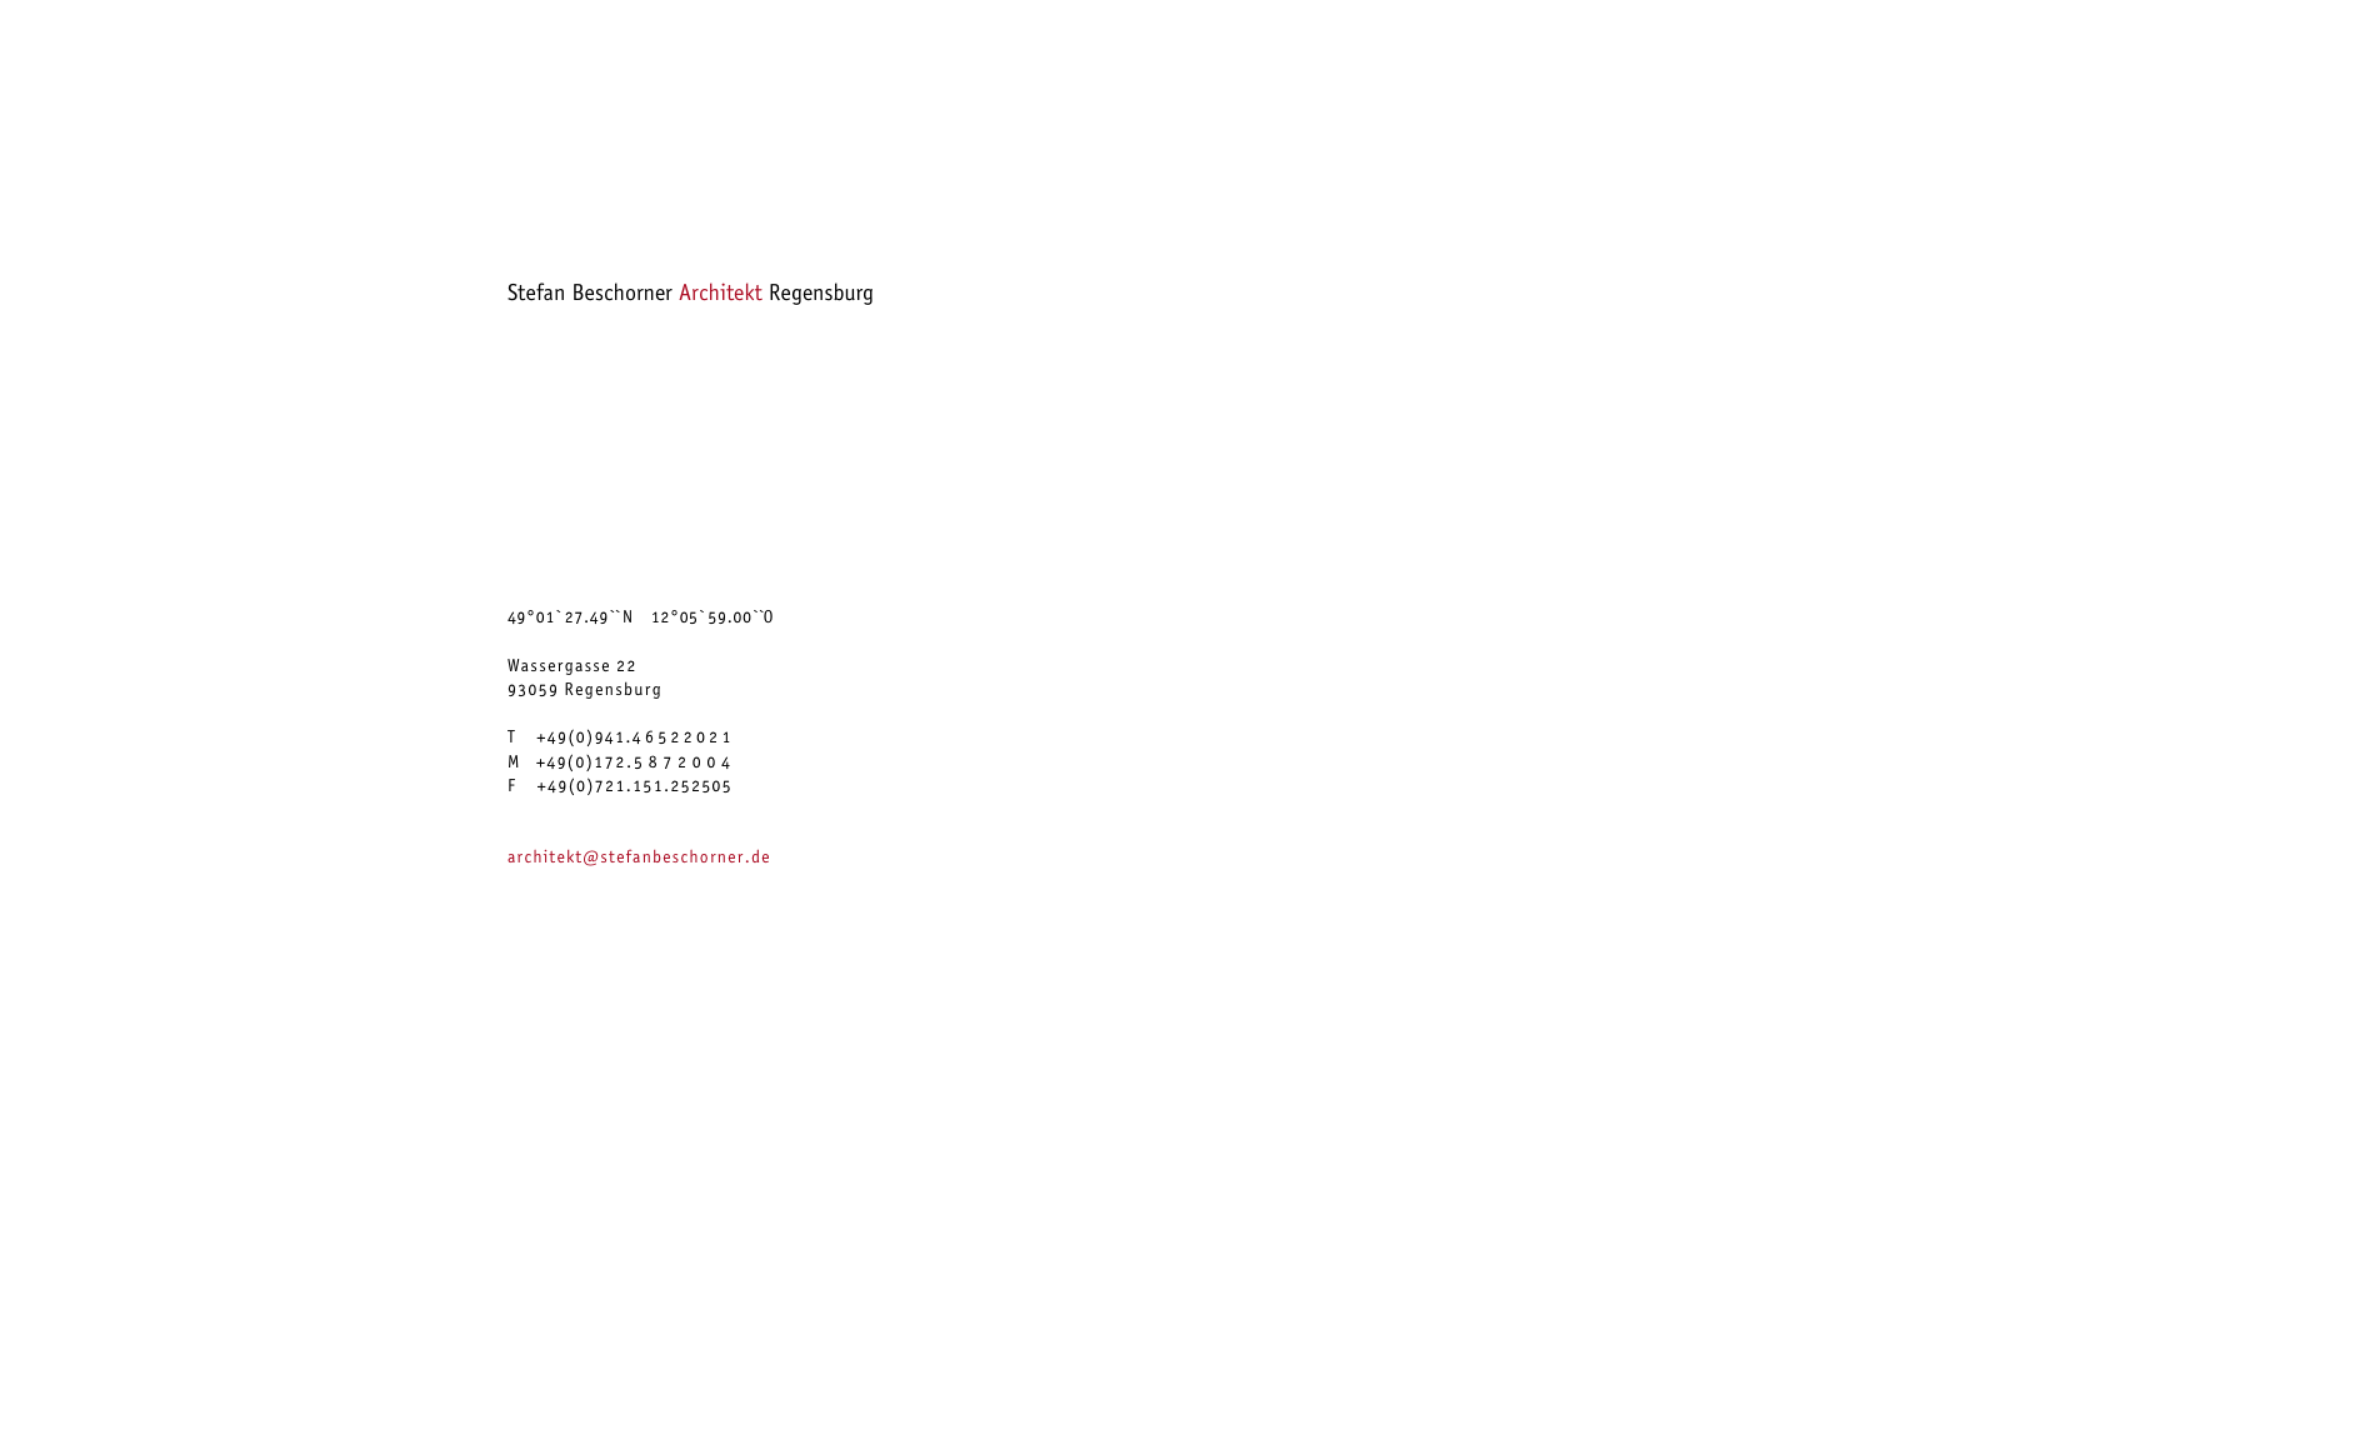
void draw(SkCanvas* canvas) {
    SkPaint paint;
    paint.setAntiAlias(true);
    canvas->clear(0xFFFFFFFF);
    canvas->drawImageRect(SkImages::DeferredFromEncodedData(SkData::MakeFromFileName("img1.png")), SkRect::MakeXYWH(507, 282, 366, 23), SkSamplingOptions());
    canvas->drawImageRect(SkImages::DeferredFromEncodedData(SkData::MakeFromFileName("img2.png")), SkRect::MakeXYWH(507, 609, 266, 187), SkSamplingOptions());
    canvas->drawImageRect(SkImages::DeferredFromEncodedData(SkData::MakeFromFileName("img3.png")), SkRect::MakeXYWH(507, 848, 262, 19), SkSamplingOptions());
}
